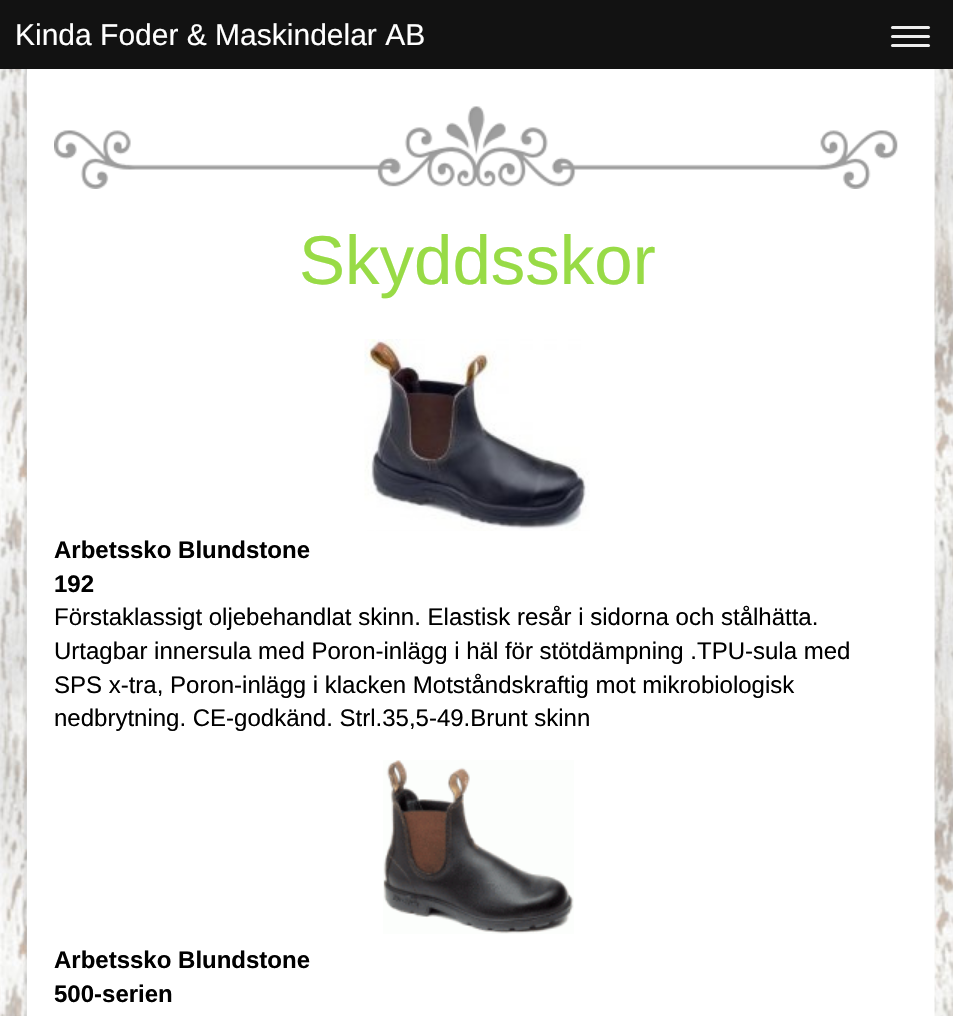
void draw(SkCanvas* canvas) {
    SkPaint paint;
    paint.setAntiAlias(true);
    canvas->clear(0xFFFFFFFF);
    canvas->drawImageRect(SkImages::DeferredFromEncodedData(SkData::MakeFromFileName("img1.png")), SkRect::MakeXYWH(0, 69, 953, 947), SkSamplingOptions());
    paint.setColor(0xFF121212);
    canvas->drawRect(SkRect::MakeXYWH(0, 0, 953, 69), paint);
    SkFont font1(fontMgr->matchFamilyStyle("Liberation Sans", SkFontStyle::Normal()), 30);
    font1.setSubpixel(true);
    paint.setColor(0xFFFFFFFF);
    canvas->drawString("Kinda Foder & Maskindelar AB", 15, 45, font1, paint);
    paint.setColor(0xFFEEEEEE);
    canvas->drawRoundRect(SkRect::MakeXYWH(891, 26, 39, 3), 1.5f, 1.5f, paint);
    canvas->drawRoundRect(SkRect::MakeXYWH(891, 35, 39, 3), 1.5f, 1.5f, paint);
    canvas->drawRoundRect(SkRect::MakeXYWH(891, 44, 39, 3), 1.5f, 1.5f, paint);
    canvas->drawImageRect(SkImages::DeferredFromEncodedData(SkData::MakeFromFileName("img2.png")), SkRect::MakeXYWH(23, 69, 912, 947), SkSamplingOptions());
    paint.setColor(0xFFFFFFFF);
    canvas->drawRect(SkRect::MakeXYWH(27, 69, 1, 947), paint);
    canvas->drawImageRect(SkImages::DeferredFromEncodedData(SkData::MakeFromFileName("img3.png")), SkRect::MakeXYWH(54, 130, 321, 59), SkSamplingOptions());
    canvas->drawImageRect(SkImages::DeferredFromEncodedData(SkData::MakeFromFileName("img4.png")), SkRect::MakeXYWH(375, 106, 204, 81), SkSamplingOptions());
    canvas->drawImageRect(SkImages::DeferredFromEncodedData(SkData::MakeFromFileName("img5.png")), SkRect::MakeXYWH(579, 130, 319, 59), SkSamplingOptions());
    SkFont font2(fontMgr->matchFamilyStyle("Liberation Sans", SkFontStyle::Normal()), 69);
    font2.setSubpixel(true);
    paint.setColor(0xFF98DB46);
    canvas->drawString("Skyddsskor", 299, 284, font2, paint);
    canvas->drawImageRect(SkImages::DeferredFromEncodedData(SkData::MakeFromFileName("img6.png")), SkRect::MakeXYWH(364, 339, 226, 192), SkSamplingOptions());
    SkFont font3(fontMgr->matchFamilyStyle("Liberation Sans", SkFontStyle::Bold()), 24);
    font3.setSubpixel(true);
    paint.setColor(0xFF000000);
    canvas->drawString("Arbetssko Blundstone", 54, 558, font3, paint);
    canvas->drawString("192", 54, 592, font3, paint);
    SkFont font4(fontMgr->matchFamilyStyle("Liberation Sans", SkFontStyle::Normal()), 24);
    font4.setSubpixel(true);
    canvas->drawString("Förstaklassigt oljebehandlat skinn. Elastisk resår i sidorna och stålhätta.", 54, 625, font4, paint);
    canvas->drawString("Urtagbar innersula med Poron-inlägg i häl för stötdämpning .TPU-sula med", 54, 659, font4, paint);
    canvas->drawString("SPS x-tra, Poron-inlägg i klacken Motståndskraftig mot mikrobiologisk", 54, 693, font4, paint);
    canvas->drawString("nedbrytning. CE-godkänd. Strl.35,5-49.Brunt skinn", 54, 726, font4, paint);
    canvas->drawImageRect(SkImages::DeferredFromEncodedData(SkData::MakeFromFileName("img7.png")), SkRect::MakeXYWH(383, 760, 191, 174), SkSamplingOptions());
    canvas->drawString("Arbetssko Blundstone", 54, 968, font3, paint);
    canvas->drawString("500-serien", 54, 1002, font3, paint);
}
